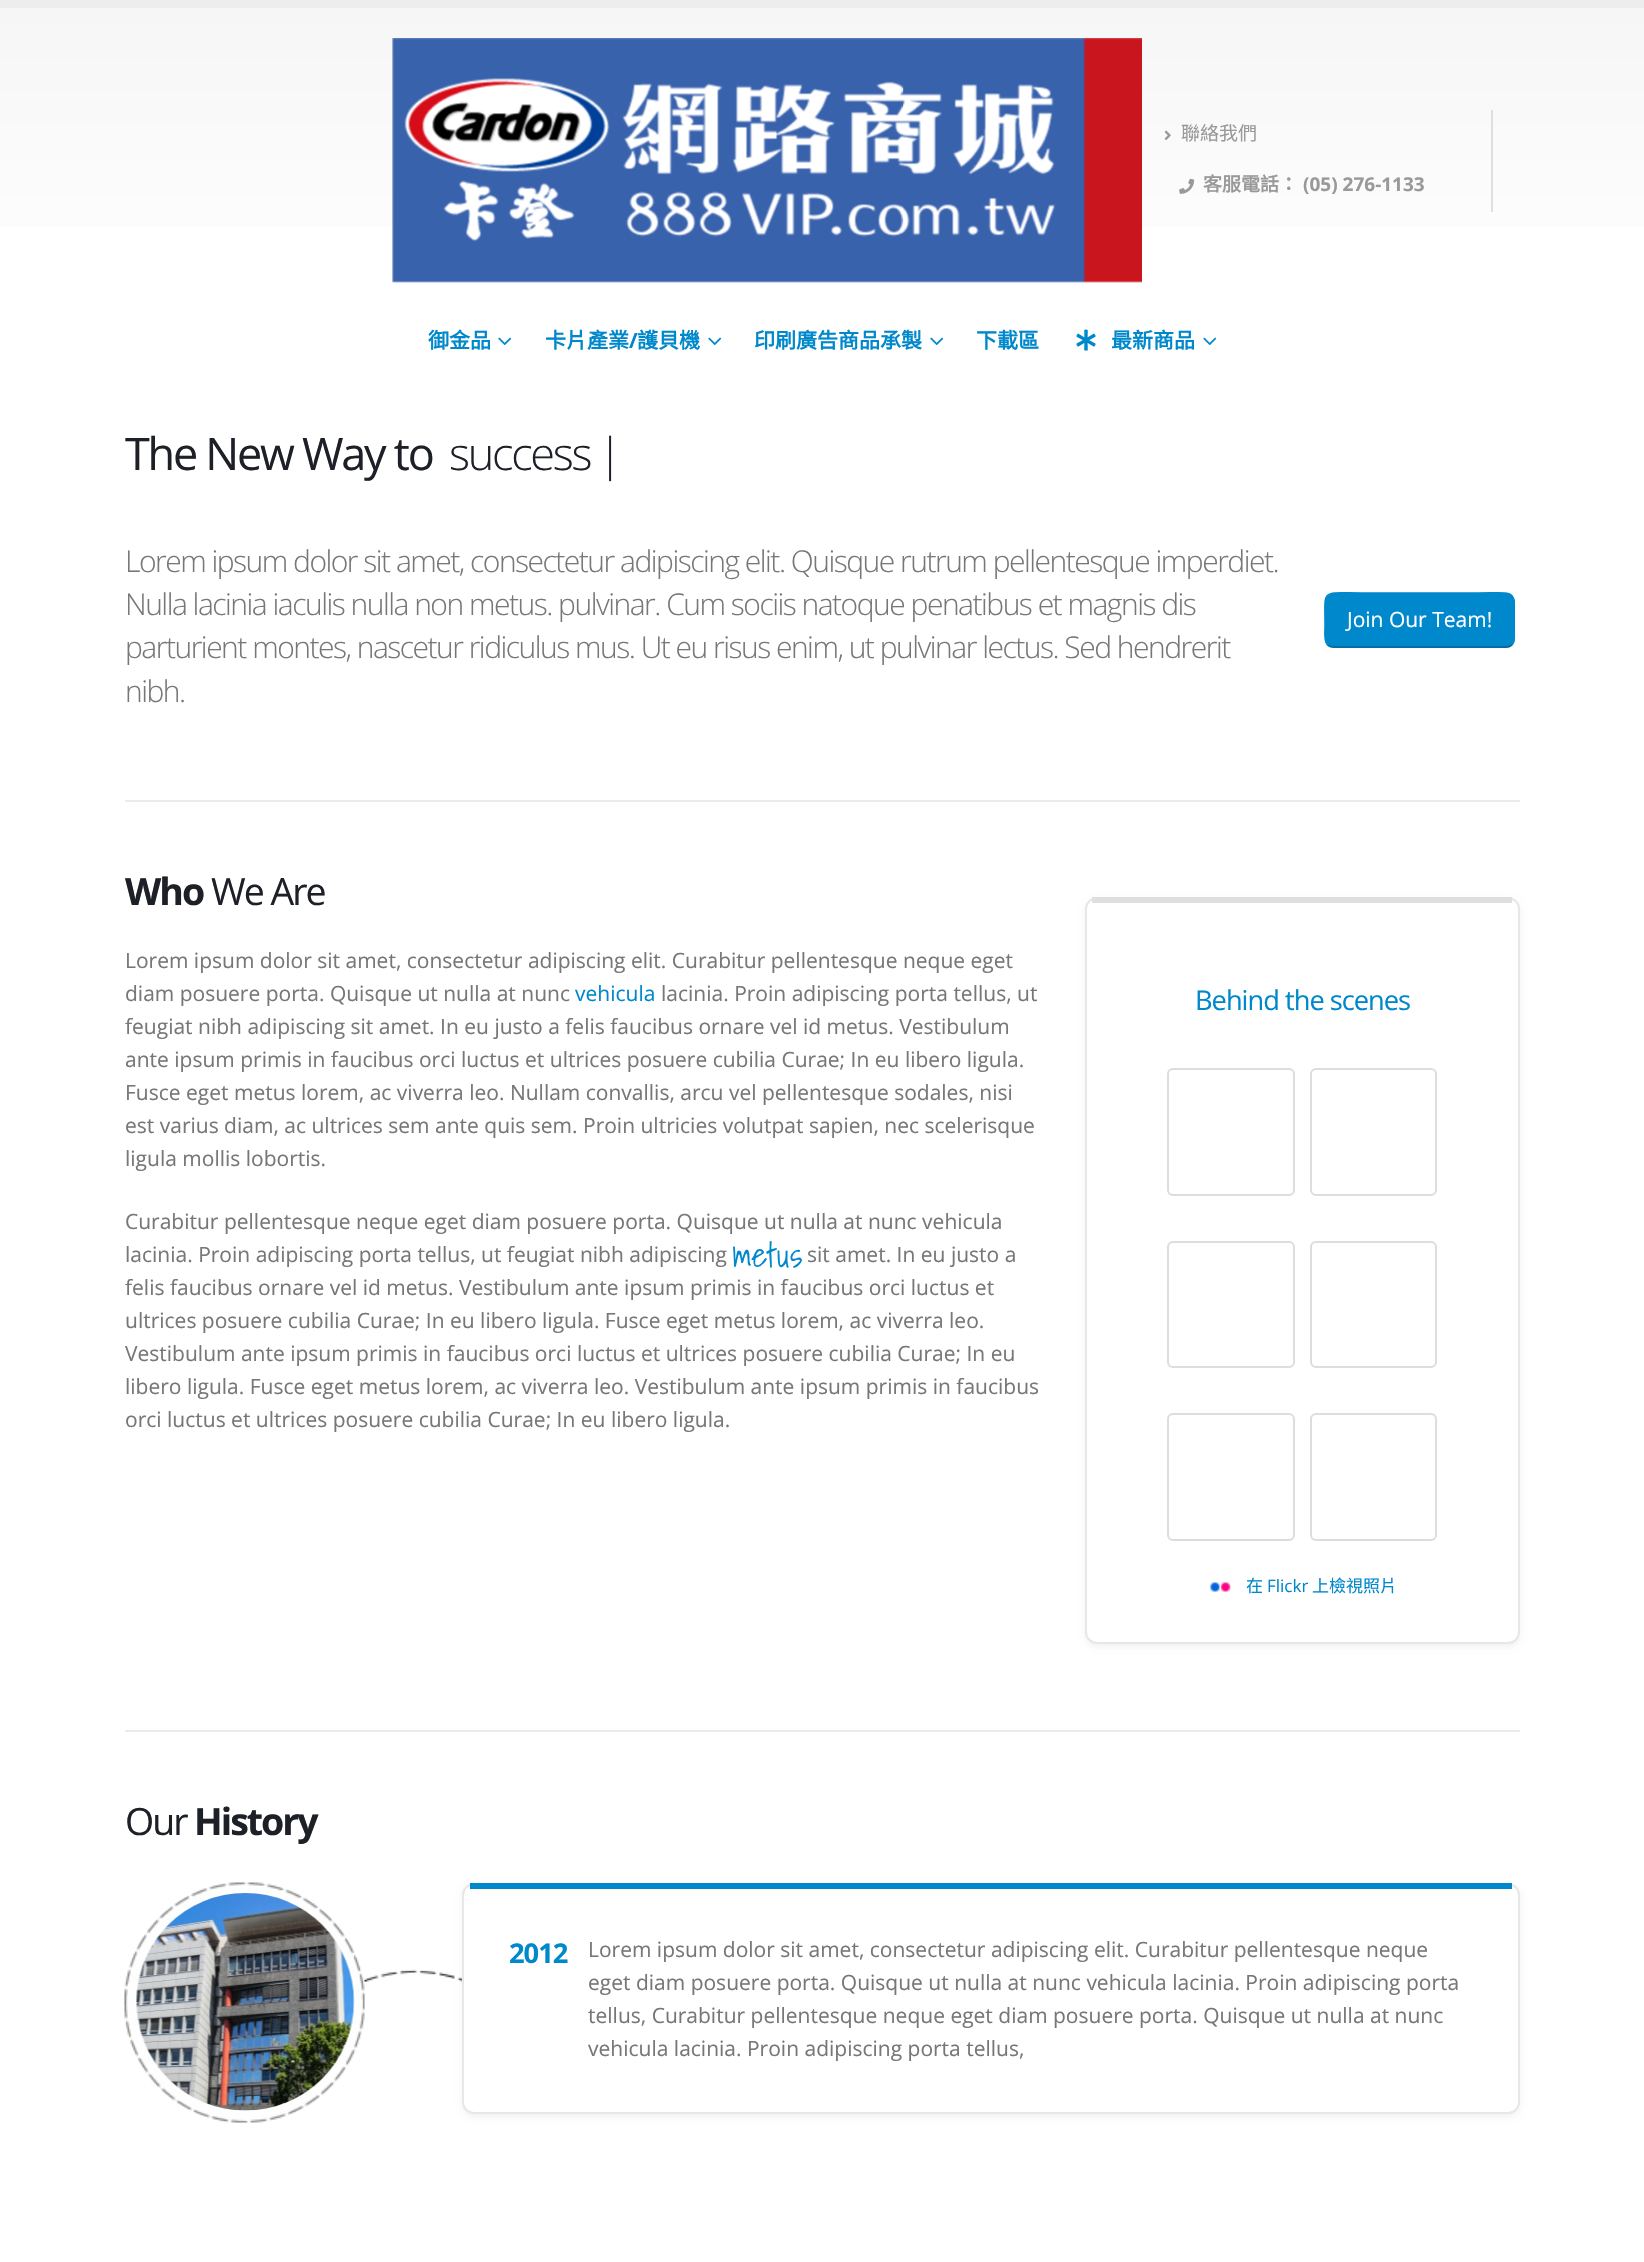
void draw(SkCanvas* canvas) {
    SkPaint paint;
    paint.setAntiAlias(true);
    auto spacedText = [&](const char* s, float x, float y, const SkFont& font, const SkPaint& ink, float letter, float word) {
        std::vector<SkGlyphID> glyphs(font.countText(s, strlen(s), SkTextEncoding::kUTF8));
        std::vector<float> xs(glyphs.size());
        font.textToGlyphs(s, strlen(s), SkTextEncoding::kUTF8, glyphs);
        font.getXPos(glyphs, xs, x);
        float extra = 0;
        for (size_t i = 0; i < glyphs.size(); i++) {
            xs[i] += extra;
            extra += letter + word * (glyphs[i] == font.unicharToGlyph(' '));
        }
        canvas->drawTextBlob(SkTextBlob::MakeFromPosHGlyphs(glyphs, xs, y, font), 0, 0, ink);
    };
    canvas->clear(0xFFFFFFFF);
    paint.setColor(0xFFEDEDED);
    canvas->drawRect(SkRect::MakeXYWH(0, 0, 1644, 8), paint);
    {
        const SkColor colors[] = {0xFFF6F6F6, 0xFFFFFFFF};
        const float stops[] = {0, 1};
        const SkPoint ends[] = {{822, 7.5f}, {822, 312}};
        paint.setShader(SkGradientShader::MakeLinear(ends, colors, stops, 2, SkTileMode::kClamp));
        paint.setAlpha(255);
    }
    canvas->drawRect(SkRect::MakeXYWH(0, 8, 1644, 219), paint);
    canvas->drawImageRect(SkImages::DeferredFromEncodedData(SkData::MakeFromFileName("img1.png")), SkRect::MakeXYWH(392, 38, 750, 245), SkSamplingOptions());
    paint.setShader(nullptr);
    paint.setColor(0xFFDDE0E2);
    canvas->drawRect(SkRect::MakeXYWH(1491, 110, 2, 102), paint);
    canvas->drawImageRect(SkImages::DeferredFromEncodedData(SkData::MakeFromFileName("img2.png")), SkRect::MakeXYWH(1164, 130, 7, 10), SkSamplingOptions());
    SkFont font1(fontMgr->matchFamilyStyle("Noto Sans CJK TC", SkFontStyle::Normal()), 19);
    font1.setSubpixel(true);
    paint.setColor(0xFF999999);
    canvas->drawString("聯絡我們", 1181, 140, font1, paint);
    canvas->drawImageRect(SkImages::DeferredFromEncodedData(SkData::MakeFromFileName("img3.png")), SkRect::MakeXYWH(1179, 178, 16, 16), SkSamplingOptions());
    SkFont font2(fontMgr->matchFamilyStyle("Noto Sans CJK TC", SkFontStyle::Bold()), 19);
    font2.setSubpixel(true);
    canvas->drawString("客服電話：", 1203, 191, font2, paint);
    SkFont font3(fontMgr->matchFamilyStyle("Open Sans", SkFontStyle::Bold()), 19);
    font3.setSubpixel(true);
    canvas->drawString("(05) 276-1133", 1303, 191, font3, paint);
    SkFont font4(fontMgr->matchFamilyStyle("Noto Sans CJK TC", SkFontStyle::Bold()), 21);
    font4.setSubpixel(true);
    paint.setColor(0xFF0088CC);
    canvas->drawString("御金品", 428, 348, font4, paint);
    canvas->drawImageRect(SkImages::DeferredFromEncodedData(SkData::MakeFromFileName("img4.png")), SkRect::MakeXYWH(498, 337, 14, 9), SkSamplingOptions());
    canvas->drawString("卡片產業", 545, 348, font4, paint);
    SkFont font5(fontMgr->matchFamilyStyle("Open Sans", SkFontStyle::Bold()), 21);
    font5.setSubpixel(true);
    canvas->drawString("/", 629, 348, font5, paint);
    canvas->drawString("護貝機", 637, 348, font4, paint);
    canvas->drawImageRect(SkImages::DeferredFromEncodedData(SkData::MakeFromFileName("img4.png")), SkRect::MakeXYWH(708, 337, 14, 9), SkSamplingOptions());
    canvas->drawString("印刷廣告商品承製", 754, 348, font4, paint);
    canvas->drawImageRect(SkImages::DeferredFromEncodedData(SkData::MakeFromFileName("img4.png")), SkRect::MakeXYWH(930, 337, 14, 9), SkSamplingOptions());
    canvas->drawString("下載區", 976, 348, font4, paint);
    canvas->drawImageRect(SkImages::DeferredFromEncodedData(SkData::MakeFromFileName("img5.png")), SkRect::MakeXYWH(1076, 329, 20, 22), SkSamplingOptions());
    canvas->drawString("最新商品", 1111, 348, font4, paint);
    canvas->drawImageRect(SkImages::DeferredFromEncodedData(SkData::MakeFromFileName("img4.png")), SkRect::MakeXYWH(1203, 337, 14, 9), SkSamplingOptions());
    SkFont font6(fontMgr->matchFamilyStyle("Open Sans", SkFontStyle::Normal()), 45);
    font6.setSubpixel(true);
    paint.setColor(0xFF1D2127);
    spacedText("The New Way to", 125, 470, font6, paint, -2.25f, 0);
    SkFont font7(fontMgr->matchFamilyStyle("Open Sans", SkFontStyle(300, SkFontStyle::kNormal_Width, SkFontStyle::kUpright_Slant)), 45);
    font7.setSubpixel(true);
    spacedText("success", 449, 470, font7, paint, -2.25f, 0);
    spacedText("|", 598, 470, font7, paint, -2.25f, 0);
    SkFont font8(fontMgr->matchFamilyStyle("Open Sans", SkFontStyle(300, SkFontStyle::kNormal_Width, SkFontStyle::kUpright_Slant)), 30);
    font8.setSubpixel(true);
    paint.setColor(0xFF777777);
    spacedText("Lorem ipsum dolor sit amet, consectetur adipiscing elit. Quisque rutrum pellentesque imperdiet.", 125, 572, font8, paint, -1.5f, 0);
    spacedText("Nulla lacinia iaculis nulla non metus. pulvinar. Cum sociis natoque penatibus et magnis dis", 125, 615, font8, paint, -1.5f, 0);
    spacedText("parturient montes, nascetur ridiculus mus. Ut eu risus enim, ut pulvinar lectus. Sed hendrerit", 125, 658, font8, paint, -1.5f, 0);
    spacedText("nibh.", 125, 702, font8, paint, -1.5f, 0);
    paint.setColor(0xFF0088CC);
    canvas->drawRoundRect(SkRect::MakeXYWH(1325, 593, 190, 55), 9, 9, paint);
    paint.setStyle(SkPaint::kStroke_Style);
    paint.setStrokeWidth(1.5f);
    paint.setColor(0xFF006699);
    canvas->drawPath(SkPathBuilder().moveTo(1512, 645).cubicTo(1510.5f, 646.5f, 1508, 647, 1506, 647).lineTo(1333.5f, 647).cubicTo(1331.5f, 647, 1329, 646.5f, 1327.5f, 645).detach(), paint);
    paint.setColor(0xFF0088CC);
    canvas->drawPath(SkPathBuilder().moveTo(1327.5f, 645).cubicTo(1323.5f, 640.5f, 1325, 631.5f, 1325, 626.5f).cubicTo(1325, 587.5f, 1320, 593, 1362, 593).lineTo(1477, 593).cubicTo(1519.5f, 593, 1514, 587.5f, 1514, 626.5f).cubicTo(1514, 631.5f, 1516, 640.5f, 1512, 645).detach(), paint);
    SkFont font9(fontMgr->matchFamilyStyle("Open Sans", SkFontStyle::Normal()), 21);
    font9.setSubpixel(true);
    paint.setStyle(SkPaint::kFill_Style);
    paint.setColor(0xFFFFFFFF);
    canvas->drawString("Join Our Team!", 1347, 627, font9, paint);
    paint.setColor(0xFFEBEBEB);
    canvas->drawRect(SkRect::MakeXYWH(125, 800, 1395, 2), paint);
    SkFont font10(fontMgr->matchFamilyStyle("Open Sans", SkFontStyle::Bold()), 37.5f);
    font10.setSubpixel(true);
    paint.setColor(0xFF1D2127);
    spacedText("Who", 125, 905, font10, paint, -2, 0);
    SkFont font11(fontMgr->matchFamilyStyle("Open Sans", SkFontStyle::Normal()), 37.5f);
    font11.setSubpixel(true);
    spacedText("We Are", 211, 905, font11, paint, -2, 0);
    paint.setColor(0xFF777777);
    canvas->drawString("Lorem ipsum dolor sit amet, consectetur adipiscing elit. Curabitur pellentesque neque eget", 125, 968, font9, paint);
    canvas->drawString("diam posuere porta. Quisque ut nulla at nunc", 125, 1001, font9, paint);
    paint.setColor(0xFF0088CC);
    canvas->drawString("vehicula", 575, 1001, font9, paint);
    paint.setColor(0xFF777777);
    canvas->drawString("lacinia. Proin adipiscing porta tellus, ut", 661, 1001, font9, paint);
    canvas->drawString("feugiat nibh adipiscing sit amet. In eu justo a felis faucibus ornare vel id metus. Vestibulum", 125, 1034, font9, paint);
    canvas->drawString("ante ipsum primis in faucibus orci luctus et ultrices posuere cubilia Curae; In eu libero ligula.", 125, 1067, font9, paint);
    canvas->drawString("Fusce eget metus lorem, ac viverra leo. Nullam convallis, arcu vel pellentesque sodales, nisi", 125, 1100, font9, paint);
    canvas->drawString("est varius diam, ac ultrices sem ante quis sem. Proin ultricies volutpat sapien, nec scelerisque", 125, 1133, font9, paint);
    canvas->drawString("ligula mollis lobortis.", 125, 1166, font9, paint);
    canvas->drawString("Curabitur pellentesque neque eget diam posuere porta. Quisque ut nulla at nunc vehicula", 125, 1229, font9, paint);
    canvas->drawString("lacinia. Proin adipiscing porta tellus, ut feugiat nibh adipiscing", 125, 1262, font9, paint);
    SkFont font12(fontMgr->matchFamilyStyle("Shadows Into Light", SkFontStyle(300, SkFontStyle::kNormal_Width, SkFontStyle::kUpright_Slant)), 34);
    font12.setSubpixel(true);
    paint.setColor(0xFF0088CC);
    canvas->drawString("metus", 732, 1267, font12, paint);
    paint.setColor(0xFF777777);
    canvas->drawString("sit amet. In eu justo a", 807, 1262, font9, paint);
    canvas->drawString("felis faucibus ornare vel id metus. Vestibulum ante ipsum primis in faucibus orci luctus et", 125, 1295, font9, paint);
    canvas->drawString("ultrices posuere cubilia Curae; In eu libero ligula. Fusce eget metus lorem, ac viverra leo.", 125, 1328, font9, paint);
    canvas->drawString("Vestibulum ante ipsum primis in faucibus orci luctus et ultrices posuere cubilia Curae; In eu", 125, 1361, font9, paint);
    canvas->drawString("libero ligula. Fusce eget metus lorem, ac viverra leo. Vestibulum ante ipsum primis in faucibus", 125, 1394, font9, paint);
    canvas->drawString("orci luctus et ultrices posuere cubilia Curae; In eu libero ligula.", 125, 1427, font9, paint);
    paint.setColor(0x0D000000);
    paint.setMaskFilter(SkMaskFilter::MakeBlur(kNormal_SkBlurStyle, 3));
    canvas->drawRoundRect(SkRect::MakeXYWH(1085, 900, 435, 747), 12, 12, paint);
    paint.setMaskFilter(nullptr);
    paint.setColor(0xFFFFFFFF);
    canvas->drawRoundRect(SkRect::MakeXYWH(1086, 898, 433, 745), 11, 11, paint);
    paint.setStyle(SkPaint::kStroke_Style);
    paint.setStrokeWidth(2);
    paint.setColor(0xFFE7E7E7);
    canvas->drawRoundRect(SkRect::MakeXYWH(1086, 898, 433, 745), 11, 11, paint);
    paint.setStyle(SkPaint::kFill_Style);
    paint.setColor(0xFFDFDFDF);
    canvas->drawRect(SkRect::MakeXYWH(1092, 897, 420, 6), paint);
    SkFont font13(fontMgr->matchFamilyStyle("Open Sans", SkFontStyle::Normal()), 27.25f);
    font13.setSubpixel(true);
    paint.setColor(0xFF0088CC);
    spacedText("Behind the scenes", 1195, 1010, font13, paint, -1, 0);
    paint.setStyle(SkPaint::kStroke_Style);
    paint.setColor(0xFFDDDDDD);
    canvas->drawRoundRect(SkRect::MakeXYWH(1168, 1069, 126, 126), 5, 5, paint);
    canvas->drawRoundRect(SkRect::MakeXYWH(1311, 1069, 125, 126), 5, 5, paint);
    canvas->drawRoundRect(SkRect::MakeXYWH(1168, 1242, 126, 125), 5, 5, paint);
    canvas->drawRoundRect(SkRect::MakeXYWH(1311, 1242, 125, 125), 5, 5, paint);
    canvas->drawRoundRect(SkRect::MakeXYWH(1168, 1414, 126, 126), 5, 5, paint);
    canvas->drawRoundRect(SkRect::MakeXYWH(1311, 1414, 125, 126), 5, 5, paint);
    canvas->drawImageRect(SkImages::DeferredFromEncodedData(SkData::MakeFromFileName("img6.png")), SkRect::MakeXYWH(1210, 1582, 21, 10), SkSamplingOptions());
    SkFont font14(fontMgr->matchFamilyStyle("Noto Sans CJK TC", SkFontStyle::Normal()), 17);
    font14.setSubpixel(true);
    paint.setStyle(SkPaint::kFill_Style);
    paint.setColor(0xFF0088CC);
    canvas->drawString("在", 1246, 1592, font14, paint);
    SkFont font15(fontMgr->matchFamilyStyle("Open Sans", SkFontStyle::Normal()), 17);
    font15.setSubpixel(true);
    canvas->drawString("Flickr", 1267, 1592, font15, paint);
    canvas->drawString("上檢視照片", 1312, 1592, font14, paint);
    paint.setColor(0xFFEBEBEB);
    canvas->drawRect(SkRect::MakeXYWH(125, 1730, 1395, 2), paint);
    paint.setColor(0xFF1D2127);
    spacedText("Our", 125, 1835, font11, paint, -2, 0);
    spacedText("History", 194, 1835, font10, paint, -2, 0);
    canvas->drawImageRect(SkImages::DeferredFromEncodedData(SkData::MakeFromFileName("img7.png")), SkRect::MakeXYWH(124, 1882, 338, 241), SkSamplingOptions());
    canvas->drawImageRect(SkImages::DeferredFromEncodedData(SkData::MakeFromFileName("img8.png")), SkRect::MakeXYWH(136, 1893, 219, 218), SkSamplingOptions());
    paint.setColor(0x0D000000);
    paint.setMaskFilter(SkMaskFilter::MakeBlur(kNormal_SkBlurStyle, 3));
    canvas->drawRoundRect(SkRect::MakeXYWH(462, 1886, 1058, 231), 12, 12, paint);
    paint.setMaskFilter(nullptr);
    paint.setColor(0xFFFFFFFF);
    canvas->drawRoundRect(SkRect::MakeXYWH(463, 1884, 1056, 229), 11, 11, paint);
    paint.setStyle(SkPaint::kStroke_Style);
    paint.setColor(0xFFE7E7E7);
    canvas->drawRoundRect(SkRect::MakeXYWH(463, 1884, 1056, 229), 11, 11, paint);
    paint.setStyle(SkPaint::kFill_Style);
    paint.setColor(0xFF0088CC);
    canvas->drawRect(SkRect::MakeXYWH(470, 1883, 1042, 6), paint);
    SkFont font16(fontMgr->matchFamilyStyle("Open Sans", SkFontStyle::Bold()), 27.25f);
    font16.setSubpixel(true);
    spacedText("2012", 509, 1963, font16, paint, -1, 0);
    paint.setColor(0xFF777777);
    canvas->drawString("Lorem ipsum dolor sit amet, consectetur adipiscing elit. Curabitur pellentesque neque", 588, 1957, font9, paint);
    canvas->drawString("eget diam posuere porta. Quisque ut nulla at nunc vehicula lacinia. Proin adipiscing porta", 588, 1990, font9, paint);
    canvas->drawString("tellus, Curabitur pellentesque neque eget diam posuere porta. Quisque ut nulla at nunc", 588, 2023, font9, paint);
    canvas->drawString("vehicula lacinia. Proin adipiscing porta tellus,", 588, 2056, font9, paint);
}
